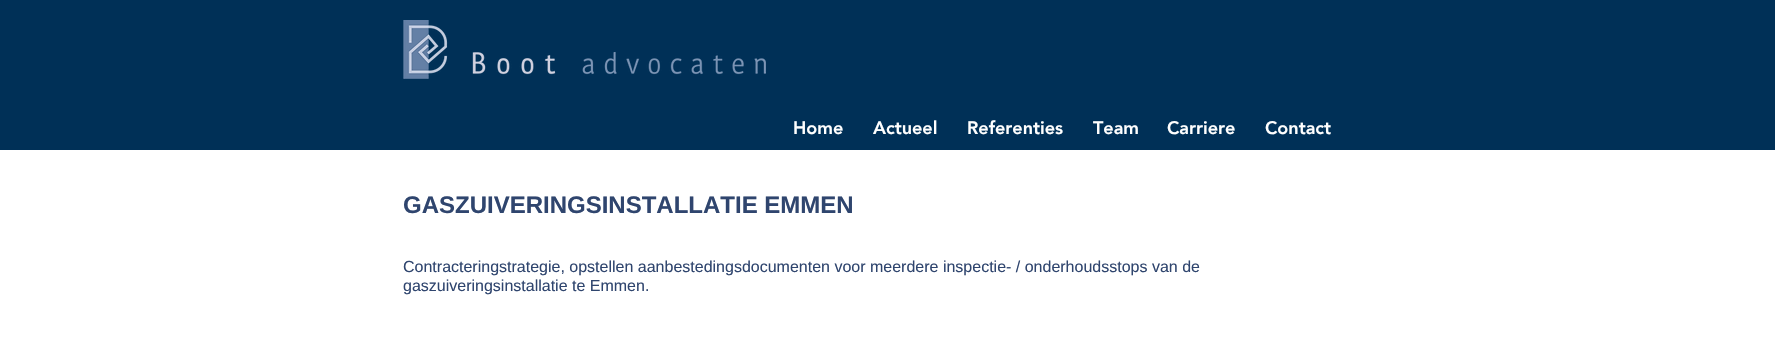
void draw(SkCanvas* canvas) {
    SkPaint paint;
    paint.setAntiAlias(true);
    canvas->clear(0xFFFFFFFF);
    paint.setColor(0xFF003057);
    canvas->drawRect(SkRect::MakeXYWH(0, 0, 1775, 150), paint);
    canvas->drawImageRect(SkImages::DeferredFromEncodedData(SkData::MakeFromFileName("img1.png")), SkRect::MakeXYWH(403, 20, 363, 59), SkSamplingOptions());
    SkFont font1(fontMgr->matchFamilyStyle("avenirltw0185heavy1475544", SkFontStyle(900, SkFontStyle::kNormal_Width, SkFontStyle::kUpright_Slant)), 18);
    font1.setSubpixel(true);
    paint.setColor(0xFFFFFFFF);
    canvas->drawString("Home", 793, 134, font1, paint);
    canvas->drawString("Actueel", 873, 134, font1, paint);
    canvas->drawString("Referenties", 967, 134, font1, paint);
    canvas->drawString("Team", 1093, 134, font1, paint);
    canvas->drawString("Carriere", 1167, 134, font1, paint);
    canvas->drawString("Contact", 1265, 134, font1, paint);
    SkFont font2(fontMgr->matchFamilyStyle("Liberation Sans", SkFontStyle::Bold()), 24);
    font2.setSubpixel(true);
    paint.setColor(0xFF2F456E);
    canvas->drawString("GASZUIVERINGSINSTALLATIE EMMEN", 403, 213, font2, paint);
    SkFont font3(fontMgr->matchFamilyStyle("Liberation Sans", SkFontStyle::Normal()), 16);
    font3.setSubpixel(true);
    canvas->drawString("Contracteringstrategie, opstellen aanbestedingsdocumenten voor meerdere inspectie- / onderhoudsstops van de", 403, 272, font3, paint);
    canvas->drawString("gaszuiveringsinstallatie te Emmen.", 403, 291, font3, paint);
}
